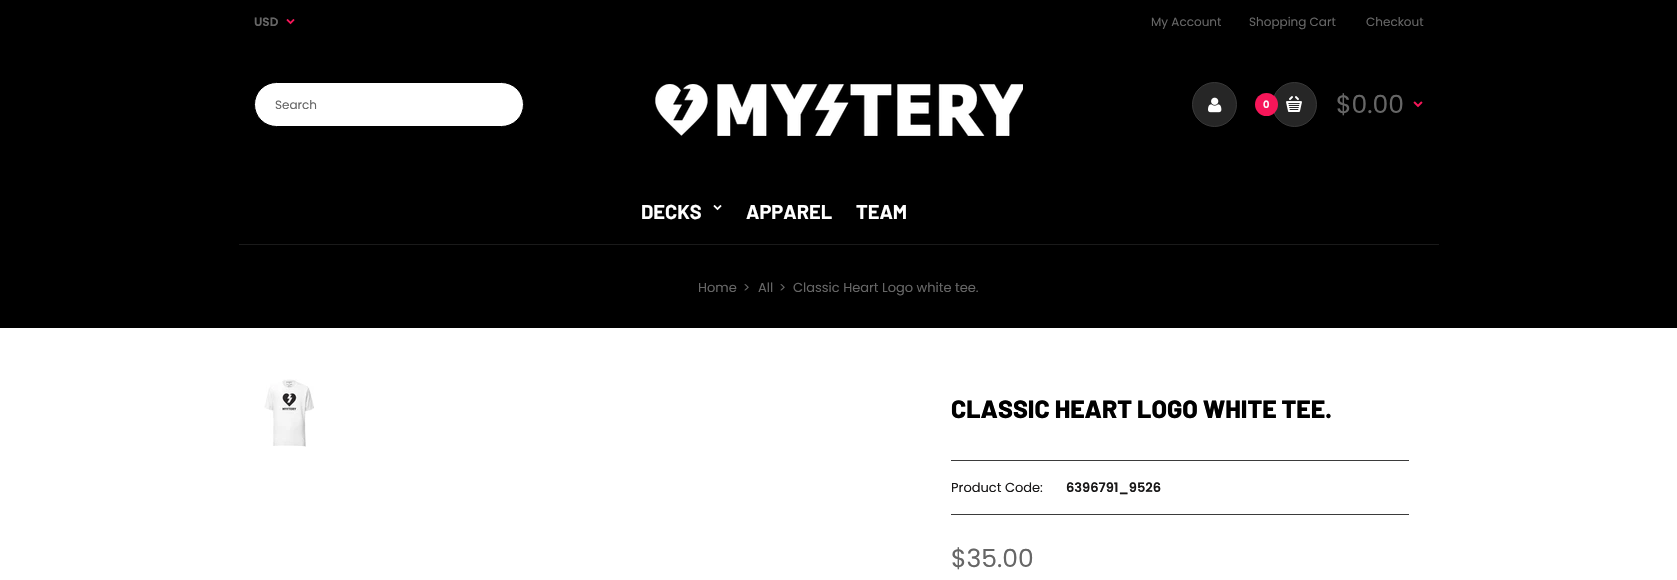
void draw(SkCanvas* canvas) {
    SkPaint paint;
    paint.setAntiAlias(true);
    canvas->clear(0xFFFFFFFF);
    paint.setColor(0xFF000000);
    canvas->drawRect(SkRect::MakeXYWH(0, 0, 1677, 328), paint);
    SkFont font1(fontMgr->matchFamilyStyle("Poppins", SkFontStyle(600, SkFontStyle::kNormal_Width, SkFontStyle::kUpright_Slant)), 12);
    font1.setSubpixel(true);
    paint.setColor(0xFF666666);
    canvas->drawString("USD", 254, 26, font1, paint);
    canvas->drawImageRect(SkImages::DeferredFromEncodedData(SkData::MakeFromFileName("img1.png")), SkRect::MakeXYWH(286, 19, 9, 6), SkSamplingOptions());
    SkFont font2(fontMgr->matchFamilyStyle("Poppins", SkFontStyle::Normal()), 12);
    font2.setSubpixel(true);
    canvas->drawString("My Account", 1151, 26, font2, paint);
    canvas->drawString("Shopping Cart", 1249, 26, font2, paint);
    canvas->drawString("Checkout", 1366, 26, font2, paint);
    paint.setColor(0xFFFFFFFF);
    canvas->drawRoundRect(SkRect::MakeXYWH(254.5f, 82.5f, 269, 44), 22, 22, paint);
    paint.setStyle(SkPaint::kStroke_Style);
    paint.setStrokeWidth(1);
    paint.setColor(0xFF000000);
    canvas->drawRoundRect(SkRect::MakeXYWH(254.5f, 82.5f, 269, 44), 22, 22, paint);
    paint.setStyle(SkPaint::kFill_Style);
    paint.setColor(0xFF666666);
    canvas->drawString("Search", 275, 109, font2, paint);
    canvas->drawImageRect(SkImages::DeferredFromEncodedData(SkData::MakeFromFileName("img2.png")), SkRect::MakeXYWH(655, 84, 368, 52), SkSamplingOptions());
    paint.setColor(0xFF262626);
    canvas->drawCircle(1214.5f, 104.5f, 22, paint);
    paint.setStyle(SkPaint::kStroke_Style);
    paint.setColor(0xFF383838);
    canvas->drawCircle(1214.5f, 104.5f, 22, paint);
    canvas->drawImageRect(SkImages::DeferredFromEncodedData(SkData::MakeFromFileName("img3.png")), SkRect::MakeXYWH(1208, 97, 14, 16), SkSamplingOptions());
    paint.setStyle(SkPaint::kFill_Style);
    paint.setColor(0xFF262626);
    canvas->drawCircle(1294.5f, 104.5f, 22, paint);
    paint.setStyle(SkPaint::kStroke_Style);
    paint.setColor(0xFF383838);
    canvas->drawCircle(1294.5f, 104.5f, 22, paint);
    paint.setStyle(SkPaint::kFill_Style);
    paint.setColor(0xFFF71659);
    canvas->drawCircle(1266.5f, 104.5f, 11.5f, paint);
    SkFont font3(fontMgr->matchFamilyStyle("Poppins", SkFontStyle(600, SkFontStyle::kNormal_Width, SkFontStyle::kUpright_Slant)), 10);
    font3.setSubpixel(true);
    paint.setColor(0xFFFFFFFF);
    canvas->drawString("0", 1263, 108, font3, paint);
    canvas->drawImageRect(SkImages::DeferredFromEncodedData(SkData::MakeFromFileName("img4.png")), SkRect::MakeXYWH(1286, 96, 16, 16), SkSamplingOptions());
    SkFont font4(fontMgr->matchFamilyStyle("Poppins", SkFontStyle::Normal()), 25);
    font4.setSubpixel(true);
    paint.setColor(0xFF666666);
    canvas->drawString("$0.00", 1336, 113, font4, paint);
    canvas->drawImageRect(SkImages::DeferredFromEncodedData(SkData::MakeFromFileName("img5.png")), SkRect::MakeXYWH(1413, 101, 10, 7), SkSamplingOptions());
    paint.setColor(0xFF1A1A1A);
    canvas->drawRect(SkRect::MakeXYWH(239, 244, 1200, 1), paint);
    SkFont font5(fontMgr->matchFamilyStyle("Barlow", SkFontStyle::Bold()), 20);
    font5.setSubpixel(true);
    paint.setColor(0xFFFFFFFF);
    canvas->drawString("DECKS", 641, 219, font5, paint);
    canvas->drawImageRect(SkImages::DeferredFromEncodedData(SkData::MakeFromFileName("img6.png")), SkRect::MakeXYWH(713, 205, 9, 6), SkSamplingOptions());
    canvas->drawString("APPAREL", 746, 219, font5, paint);
    canvas->drawString("TEAM", 856, 219, font5, paint);
    SkFont font6(fontMgr->matchFamilyStyle("Poppins", SkFontStyle::Normal()), 13);
    font6.setSubpixel(true);
    paint.setColor(0xFF666666);
    canvas->drawString("Home", 698, 292, font6, paint);
    canvas->drawString(">", 743, 292, font6, paint);
    canvas->drawString("All", 758, 292, font6, paint);
    canvas->drawString(">", 779, 292, font6, paint);
    canvas->drawString("Classic Heart Logo white tee.", 793, 292, font6, paint);
    canvas->drawImageRect(SkImages::DeferredFromEncodedData(SkData::MakeFromFileName("img7.png")), SkRect::MakeXYWH(264, 379, 50, 68), SkSamplingOptions());
    SkFont font7(fontMgr->matchFamilyStyle("Barlow", SkFontStyle(800, SkFontStyle::kNormal_Width, SkFontStyle::kUpright_Slant)), 25);
    font7.setSubpixel(true);
    paint.setColor(0xFF000000);
    canvas->drawString("CLASSIC HEART LOGO WHITE TEE.", 951, 418, font7, paint);
    paint.setColor(0xFF3B3B3B);
    canvas->drawRect(SkRect::MakeXYWH(951, 460, 458, 1), paint);
    canvas->drawRect(SkRect::MakeXYWH(951, 514, 458, 1), paint);
    paint.setColor(0xFF181717);
    canvas->drawString("Product Code:", 951, 492, font6, paint);
    SkFont font8(fontMgr->matchFamilyStyle("Poppins", SkFontStyle(600, SkFontStyle::kNormal_Width, SkFontStyle::kUpright_Slant)), 13);
    font8.setSubpixel(true);
    canvas->drawString("6396791_9526", 1066, 492, font8, paint);
    paint.setColor(0xFF666666);
    canvas->drawString("$35.00", 951, 567, font4, paint);
}
